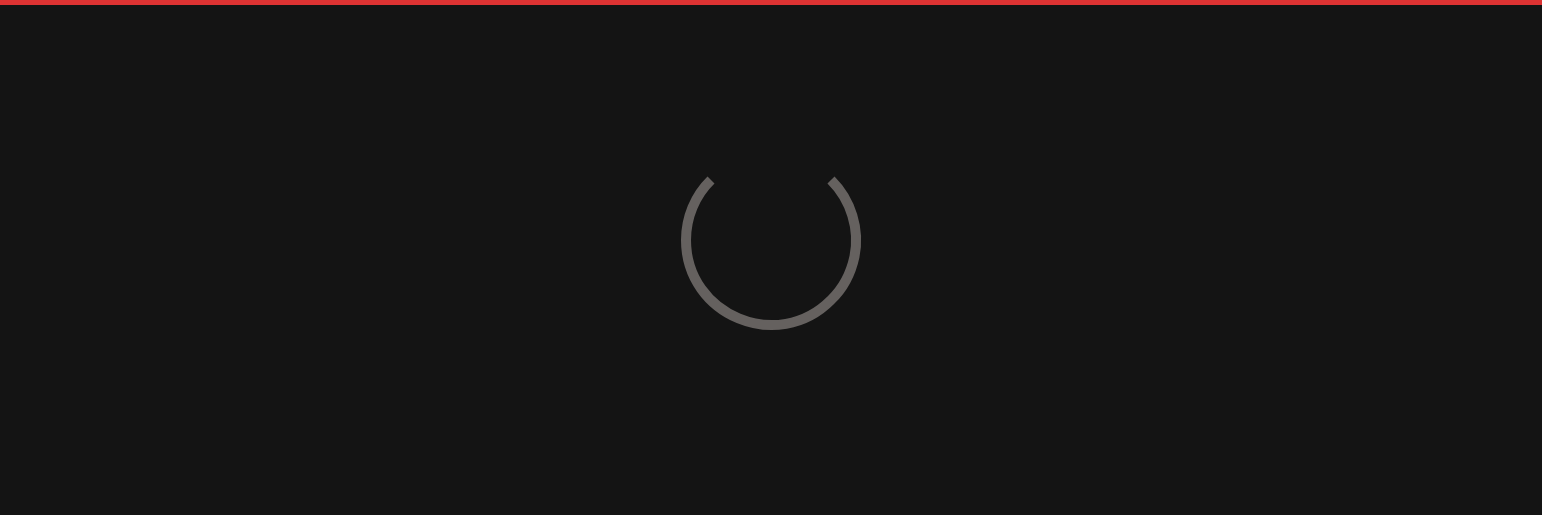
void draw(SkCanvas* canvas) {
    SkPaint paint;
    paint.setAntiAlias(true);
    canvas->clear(0xFF141414);
    paint.setColor(0xFFDD3333);
    canvas->drawRect(SkRect::MakeXYWH(0, 0, 1542, 5), paint);
    paint.setStyle(SkPaint::kStroke_Style);
    paint.setStrokeWidth(10);
    paint.setColor(0xFF65615F);
    canvas->drawPath(SkPathBuilder().moveTo(831, 180).cubicTo(851, 200, 860, 229, 854.5f, 256.5f).cubicTo(851, 273, 843, 288.5f, 831, 300).cubicTo(778, 353.5f, 686, 315.5f, 686, 240).cubicTo(686, 217.5f, 695, 195.5f, 711, 180).detach(), paint);
}
